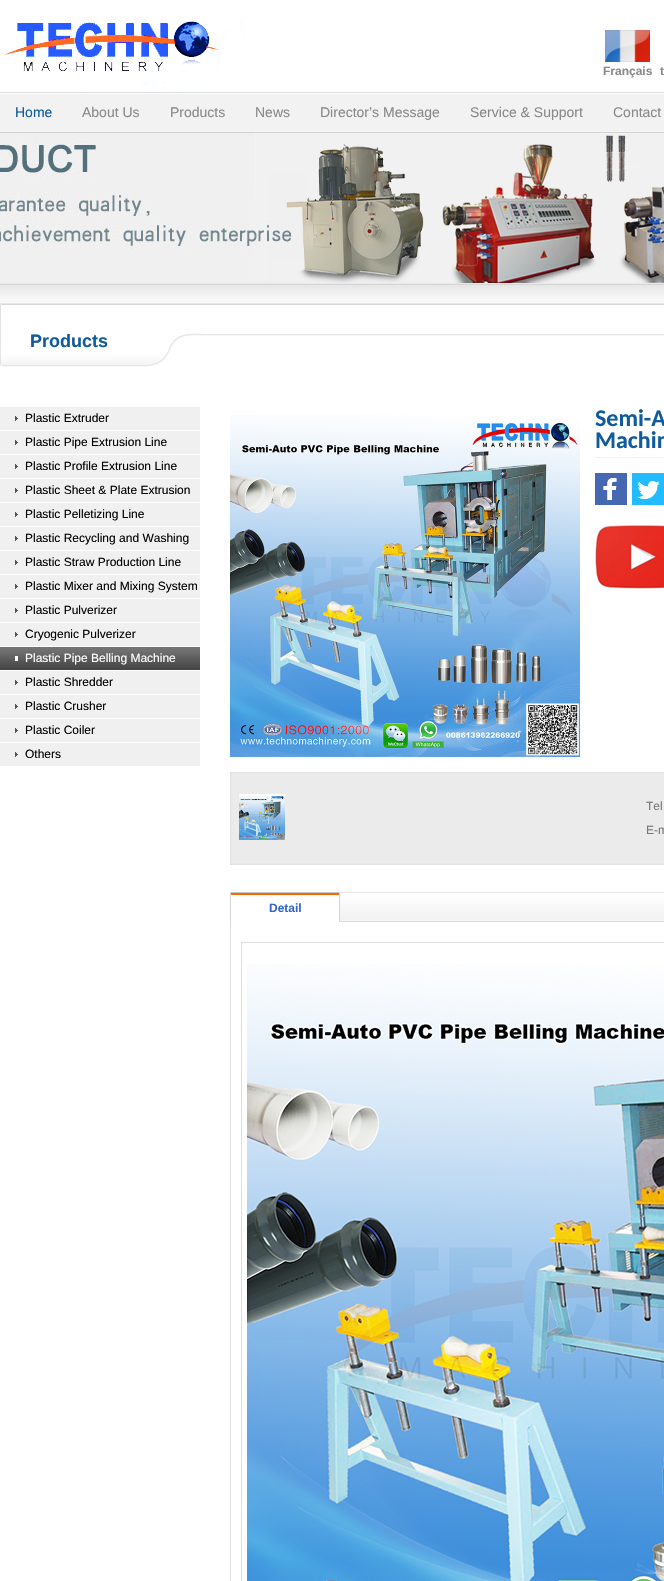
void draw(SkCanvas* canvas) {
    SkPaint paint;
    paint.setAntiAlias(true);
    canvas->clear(0xFFFFFFFF);
    canvas->drawImageRect(SkImages::DeferredFromEncodedData(SkData::MakeFromFileName("img1.png")), SkRect::MakeXYWH(4, 8, 240, 82), SkSamplingOptions());
    canvas->drawImageRect(SkImages::DeferredFromEncodedData(SkData::MakeFromFileName("img2.png")), SkRect::MakeXYWH(605, 30, 45, 32), SkSamplingOptions());
    SkFont font1(fontMgr->matchFamilyStyle("Liberation Sans", SkFontStyle::Bold()), 12);
    font1.setSubpixel(true);
    paint.setColor(0xFF898989);
    canvas->drawString("Français", 603, 75, font1, paint);
    canvas->drawString("t", 660, 75, font1, paint);
    canvas->drawImageRect(SkImages::DeferredFromEncodedData(SkData::MakeFromFileName("img3.png")), SkRect::MakeXYWH(0, 92, 664, 41), SkSamplingOptions());
    SkFont font2(fontMgr->matchFamilyStyle("Liberation Sans", SkFontStyle::Normal()), 14);
    font2.setSubpixel(true);
    paint.setColor(0xFF115A9E);
    canvas->drawString("Home", 15, 117, font2, paint);
    paint.setColor(0xFF898989);
    canvas->drawString("About Us", 82, 117, font2, paint);
    canvas->drawString("Products", 170, 117, font2, paint);
    canvas->drawString("News", 255, 117, font2, paint);
    canvas->drawString("Director’s Message", 320, 117, font2, paint);
    canvas->drawString("Service & Support", 470, 117, font2, paint);
    canvas->drawString("Contact", 613, 117, font2, paint);
    canvas->drawImageRect(SkImages::DeferredFromEncodedData(SkData::MakeFromFileName("img4.png")), SkRect::MakeXYWH(0, 133, 664, 150), SkSamplingOptions());
    canvas->drawImageRect(SkImages::DeferredFromEncodedData(SkData::MakeFromFileName("img5.png")), SkRect::MakeXYWH(0, 283, 664, 20), SkSamplingOptions());
    canvas->drawImageRect(SkImages::DeferredFromEncodedData(SkData::MakeFromFileName("img6.png")), SkRect::MakeXYWH(0, 303, 664, 64), SkSamplingOptions());
    SkFont font3(fontMgr->matchFamilyStyle("Liberation Sans", SkFontStyle::Bold()), 18);
    font3.setSubpixel(true);
    paint.setColor(0xFF115A9E);
    canvas->drawString("Products", 30, 347, font3, paint);
    paint.setColor(0xFFF0F0F0);
    canvas->drawRect(SkRect::MakeXYWH(0, 407, 200, 359), paint);
    paint.setColor(0xFFFFFFFF);
    canvas->drawRect(SkRect::MakeXYWH(0, 430, 200, 1), paint);
    canvas->drawImageRect(SkImages::DeferredFromEncodedData(SkData::MakeFromFileName("img7.png")), SkRect::MakeXYWH(15, 416, 3, 5), SkSamplingOptions());
    SkFont font4(fontMgr->matchFamilyStyle("Liberation Sans", SkFontStyle::Normal()), 12);
    font4.setSubpixel(true);
    paint.setColor(0xFF000000);
    canvas->drawString("Plastic Extruder", 25, 422, font4, paint);
    paint.setColor(0xFFFFFFFF);
    canvas->drawRect(SkRect::MakeXYWH(0, 454, 200, 1), paint);
    canvas->drawImageRect(SkImages::DeferredFromEncodedData(SkData::MakeFromFileName("img7.png")), SkRect::MakeXYWH(15, 440, 3, 5), SkSamplingOptions());
    paint.setColor(0xFF000000);
    canvas->drawString("Plastic Pipe Extrusion Line", 25, 446, font4, paint);
    paint.setColor(0xFFFFFFFF);
    canvas->drawRect(SkRect::MakeXYWH(0, 478, 200, 1), paint);
    canvas->drawImageRect(SkImages::DeferredFromEncodedData(SkData::MakeFromFileName("img7.png")), SkRect::MakeXYWH(15, 464, 3, 5), SkSamplingOptions());
    paint.setColor(0xFF000000);
    canvas->drawString("Plastic Profile Extrusion Line", 25, 470, font4, paint);
    paint.setColor(0xFFFFFFFF);
    canvas->drawRect(SkRect::MakeXYWH(0, 502, 200, 1), paint);
    canvas->drawImageRect(SkImages::DeferredFromEncodedData(SkData::MakeFromFileName("img7.png")), SkRect::MakeXYWH(15, 488, 3, 5), SkSamplingOptions());
    paint.setColor(0xFF000000);
    canvas->drawString("Plastic Sheet & Plate Extrusion", 25, 494, font4, paint);
    paint.setColor(0xFFFFFFFF);
    canvas->drawRect(SkRect::MakeXYWH(0, 526, 200, 1), paint);
    canvas->drawImageRect(SkImages::DeferredFromEncodedData(SkData::MakeFromFileName("img7.png")), SkRect::MakeXYWH(15, 512, 3, 5), SkSamplingOptions());
    paint.setColor(0xFF000000);
    canvas->drawString("Plastic Pelletizing Line", 25, 518, font4, paint);
    paint.setColor(0xFFFFFFFF);
    canvas->drawRect(SkRect::MakeXYWH(0, 550, 200, 1), paint);
    canvas->drawImageRect(SkImages::DeferredFromEncodedData(SkData::MakeFromFileName("img7.png")), SkRect::MakeXYWH(15, 536, 3, 5), SkSamplingOptions());
    paint.setColor(0xFF000000);
    canvas->drawString("Plastic Recycling and Washing", 25, 542, font4, paint);
    paint.setColor(0xFFFFFFFF);
    canvas->drawRect(SkRect::MakeXYWH(0, 574, 200, 1), paint);
    canvas->drawImageRect(SkImages::DeferredFromEncodedData(SkData::MakeFromFileName("img7.png")), SkRect::MakeXYWH(15, 560, 3, 5), SkSamplingOptions());
    paint.setColor(0xFF000000);
    canvas->drawString("Plastic Straw Production Line", 25, 566, font4, paint);
    paint.setColor(0xFFFFFFFF);
    canvas->drawRect(SkRect::MakeXYWH(0, 598, 200, 1), paint);
    canvas->drawImageRect(SkImages::DeferredFromEncodedData(SkData::MakeFromFileName("img7.png")), SkRect::MakeXYWH(15, 584, 3, 5), SkSamplingOptions());
    paint.setColor(0xFF000000);
    canvas->drawString("Plastic Mixer and Mixing System", 25, 590, font4, paint);
    paint.setColor(0xFFFFFFFF);
    canvas->drawRect(SkRect::MakeXYWH(0, 622, 200, 1), paint);
    canvas->drawImageRect(SkImages::DeferredFromEncodedData(SkData::MakeFromFileName("img7.png")), SkRect::MakeXYWH(15, 608, 3, 5), SkSamplingOptions());
    paint.setColor(0xFF000000);
    canvas->drawString("Plastic Pulverizer", 25, 614, font4, paint);
    paint.setColor(0xFFFFFFFF);
    canvas->drawRect(SkRect::MakeXYWH(0, 646, 200, 1), paint);
    canvas->drawImageRect(SkImages::DeferredFromEncodedData(SkData::MakeFromFileName("img7.png")), SkRect::MakeXYWH(15, 632, 3, 5), SkSamplingOptions());
    paint.setColor(0xFF000000);
    canvas->drawString("Cryogenic Pulverizer", 25, 638, font4, paint);
    canvas->drawImageRect(SkImages::DeferredFromEncodedData(SkData::MakeFromFileName("img8.png")), SkRect::MakeXYWH(0, 647, 200, 23), SkSamplingOptions());
    paint.setColor(0xFFFFFFFF);
    canvas->drawRect(SkRect::MakeXYWH(0, 670, 200, 1), paint);
    canvas->drawString("Plastic Pipe Belling Machine", 25, 662, font4, paint);
    canvas->drawRect(SkRect::MakeXYWH(15, 656, 3, 5), paint);
    canvas->drawRect(SkRect::MakeXYWH(0, 694, 200, 1), paint);
    canvas->drawImageRect(SkImages::DeferredFromEncodedData(SkData::MakeFromFileName("img7.png")), SkRect::MakeXYWH(15, 680, 3, 5), SkSamplingOptions());
    paint.setColor(0xFF000000);
    canvas->drawString("Plastic Shredder", 25, 686, font4, paint);
    paint.setColor(0xFFFFFFFF);
    canvas->drawRect(SkRect::MakeXYWH(0, 718, 200, 1), paint);
    canvas->drawImageRect(SkImages::DeferredFromEncodedData(SkData::MakeFromFileName("img7.png")), SkRect::MakeXYWH(15, 704, 3, 5), SkSamplingOptions());
    paint.setColor(0xFF000000);
    canvas->drawString("Plastic Crusher", 25, 710, font4, paint);
    paint.setColor(0xFFFFFFFF);
    canvas->drawRect(SkRect::MakeXYWH(0, 742, 200, 1), paint);
    canvas->drawImageRect(SkImages::DeferredFromEncodedData(SkData::MakeFromFileName("img7.png")), SkRect::MakeXYWH(15, 728, 3, 5), SkSamplingOptions());
    paint.setColor(0xFF000000);
    canvas->drawString("Plastic Coiler", 25, 734, font4, paint);
    canvas->drawImageRect(SkImages::DeferredFromEncodedData(SkData::MakeFromFileName("img7.png")), SkRect::MakeXYWH(15, 752, 3, 5), SkSamplingOptions());
    canvas->drawString("Others", 25, 758, font4, paint);
    canvas->drawImageRect(SkImages::DeferredFromEncodedData(SkData::MakeFromFileName("img9.png")), SkRect::MakeXYWH(230, 415, 350, 342), SkSamplingOptions());
    paint.setColor(0xFFF0F0F0);
    canvas->drawRect(SkRect::MakeXYWH(595, 457, 69, 1), paint);
    SkFont font5(fontMgr->matchFamilyStyle("Carlito", SkFontStyle::Bold()), 24);
    font5.setSubpixel(true);
    paint.setColor(0xFF115A9E);
    canvas->drawString("Semi-A", 595, 426, font5, paint);
    canvas->drawString("Machin", 595, 448, font5, paint);
    canvas->drawImageRect(SkImages::DeferredFromEncodedData(SkData::MakeFromFileName("img10.png")), SkRect::MakeXYWH(595, 473, 32, 32), SkSamplingOptions());
    canvas->drawImageRect(SkImages::DeferredFromEncodedData(SkData::MakeFromFileName("img11.png")), SkRect::MakeXYWH(632, 473, 32, 32), SkSamplingOptions());
    canvas->drawImageRect(SkImages::DeferredFromEncodedData(SkData::MakeFromFileName("img12.png")), SkRect::MakeXYWH(595, 525, 69, 64), SkSamplingOptions());
    canvas->drawImageRect(SkImages::DeferredFromEncodedData(SkData::MakeFromFileName("img13.png")), SkRect::MakeXYWH(230, 772, 434, 93), SkSamplingOptions());
    canvas->drawImageRect(SkImages::DeferredFromEncodedData(SkData::MakeFromFileName("img14.png")), SkRect::MakeXYWH(239, 794, 46, 46), SkSamplingOptions());
    paint.setColor(0xFF767676);
    canvas->drawString("Tel", 646, 810, font4, paint);
    canvas->drawString("E-m", 646, 834, font4, paint);
    canvas->drawImageRect(SkImages::DeferredFromEncodedData(SkData::MakeFromFileName("img15.png")), SkRect::MakeXYWH(340, 892, 324, 30), SkSamplingOptions());
    paint.setColor(0xFFC5C5C5);
    canvas->drawRect(SkRect::MakeXYWH(230, 892, 110, 1), paint);
    paint.setColor(0xFFD5D5D5);
    canvas->drawRect(SkRect::MakeXYWH(339, 892, 1, 30), paint);
    canvas->drawRect(SkRect::MakeXYWH(230, 892, 1, 30), paint);
    paint.setColor(0xFFFF6600);
    canvas->drawRect(SkRect::MakeXYWH(231, 893, 108, 2), paint);
    paint.setColor(0xFF3366CC);
    canvas->drawString("Detail", 269, 912, font1, paint);
    paint.setColor(0xFFDDDDDD);
    canvas->drawRect(SkRect::MakeXYWH(230, 922, 1, 659), paint);
    paint.setStyle(SkPaint::kStroke_Style);
    paint.setStrokeWidth(1);
    canvas->drawRect(SkRect::MakeXYWH(241.5f, 942.5f, 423, 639), paint);
    canvas->drawImageRect(SkImages::DeferredFromEncodedData(SkData::MakeFromFileName("img16.png")), SkRect::MakeXYWH(247, 964, 417, 617), SkSamplingOptions());
}
